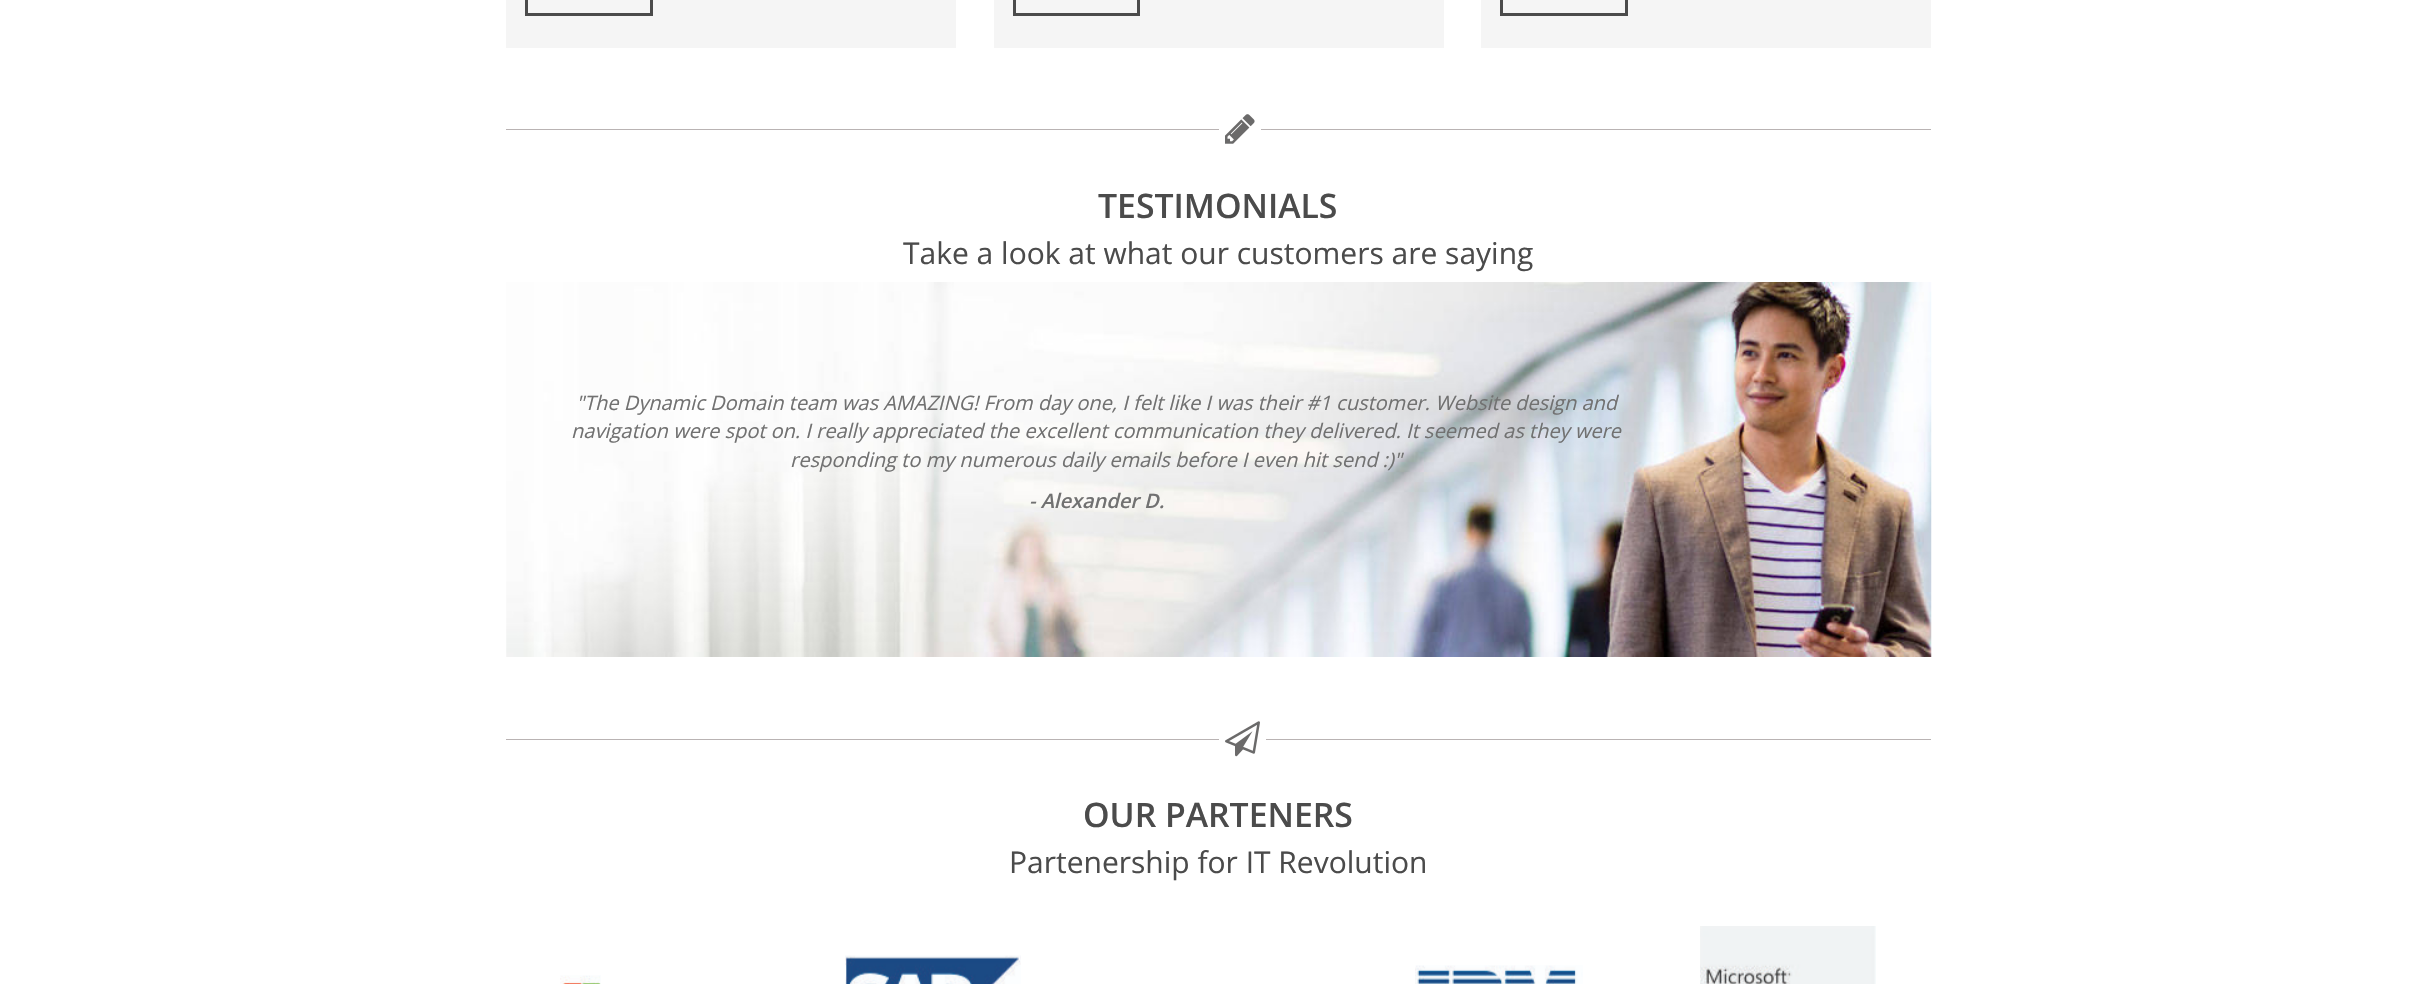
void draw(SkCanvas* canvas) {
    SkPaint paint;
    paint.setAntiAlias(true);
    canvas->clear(0xFFFFFFFF);
    paint.setColor(0xFFF5F5F5);
    canvas->drawRect(SkRect::MakeXYWH(506, 0, 450, 48), paint);
    paint.setStyle(SkPaint::kStroke_Style);
    paint.setStrokeWidth(3);
    paint.setColor(0xFF4B4B4B);
    canvas->drawRect(SkRect::MakeXYWH(526.5f, -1.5f, 125, 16), paint);
    paint.setStyle(SkPaint::kFill_Style);
    paint.setColor(0xFFF5F5F5);
    canvas->drawRect(SkRect::MakeXYWH(994, 0, 450, 48), paint);
    paint.setStyle(SkPaint::kStroke_Style);
    paint.setColor(0xFF4B4B4B);
    canvas->drawRect(SkRect::MakeXYWH(1014.5f, -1.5f, 124, 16), paint);
    paint.setStyle(SkPaint::kFill_Style);
    paint.setColor(0xFFF5F5F5);
    canvas->drawRect(SkRect::MakeXYWH(1481, 0, 450, 48), paint);
    paint.setStyle(SkPaint::kStroke_Style);
    paint.setColor(0xFF4B4B4B);
    canvas->drawRect(SkRect::MakeXYWH(1501.5f, -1.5f, 125, 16), paint);
    paint.setStyle(SkPaint::kFill_Style);
    paint.setColor(0xFFB9B3B3);
    canvas->drawRect(SkRect::MakeXYWH(506, 129, 1425, 1), paint);
    paint.setColor(0xFFFFFFFF);
    canvas->drawRect(SkRect::MakeXYWH(1219, 129, 42, 1), paint);
    canvas->drawImageRect(SkImages::DeferredFromEncodedData(SkData::MakeFromFileName("img1.png")), SkRect::MakeXYWH(1225, 114, 30, 30), SkSamplingOptions());
    SkFont font1(fontMgr->matchFamilyStyle("Open Sans", SkFontStyle(600, SkFontStyle::kNormal_Width, SkFontStyle::kUpright_Slant)), 33.75f);
    font1.setSubpixel(true);
    paint.setColor(0xFF4B4B4B);
    canvas->drawString("TESTIMONIALS", 1098, 218, font1, paint);
    SkFont font2(fontMgr->matchFamilyStyle("Open Sans", SkFontStyle::Normal()), 30);
    font2.setSubpixel(true);
    canvas->drawString("Take a look at what our customers are saying", 903, 264, font2, paint);
    canvas->drawImageRect(SkImages::DeferredFromEncodedData(SkData::MakeFromFileName("img2.png")), SkRect::MakeXYWH(506, 282, 1426, 375), SkSamplingOptions());
    SkFont font3(fontMgr->matchFamilyStyle("Open Sans", SkFontStyle::Italic()), 20);
    font3.setSubpixel(true);
    paint.setColor(0xFF717171);
    canvas->drawString("\"The Dynamic Domain team was AMAZING! From day one, I felt like I was their #1 customer. Website design and", 576, 410, font3, paint);
    canvas->drawString("navigation were spot on. I really appreciated the excellent communication they delivered. It seemed as they were", 571, 438, font3, paint);
    canvas->drawString("responding to my numerous daily emails before I even hit send :)\"", 790, 467, font3, paint);
    SkFont font4(fontMgr->matchFamilyStyle("Open Sans", SkFontStyle(600, SkFontStyle::kNormal_Width, SkFontStyle::kItalic_Slant)), 20);
    font4.setSubpixel(true);
    canvas->drawString("- Alexander D.", 1029, 508, font4, paint);
    paint.setColor(0xFFB9B3B3);
    canvas->drawRect(SkRect::MakeXYWH(506, 739, 1425, 1), paint);
    paint.setColor(0xFFFFFFFF);
    canvas->drawRect(SkRect::MakeXYWH(1219, 739, 47, 1), paint);
    canvas->drawImageRect(SkImages::DeferredFromEncodedData(SkData::MakeFromFileName("img3.png")), SkRect::MakeXYWH(1225, 721, 35, 36), SkSamplingOptions());
    paint.setColor(0xFF4B4B4B);
    canvas->drawString("OUR PARTENERS", 1083, 827, font1, paint);
    canvas->drawString("Partenership for IT Revolution", 1009, 873, font2, paint);
    canvas->drawImageRect(SkImages::DeferredFromEncodedData(SkData::MakeFromFileName("img4.png")), SkRect::MakeXYWH(560, 975, 41, 9), SkSamplingOptions());
    canvas->drawImageRect(SkImages::DeferredFromEncodedData(SkData::MakeFromFileName("img5.png")), SkRect::MakeXYWH(845, 955, 176, 29), SkSamplingOptions());
    canvas->drawImageRect(SkImages::DeferredFromEncodedData(SkData::MakeFromFileName("img6.png")), SkRect::MakeXYWH(1415, 965, 168, 19), SkSamplingOptions());
    canvas->drawImageRect(SkImages::DeferredFromEncodedData(SkData::MakeFromFileName("img7.png")), SkRect::MakeXYWH(1700, 926, 176, 58), SkSamplingOptions());
}
